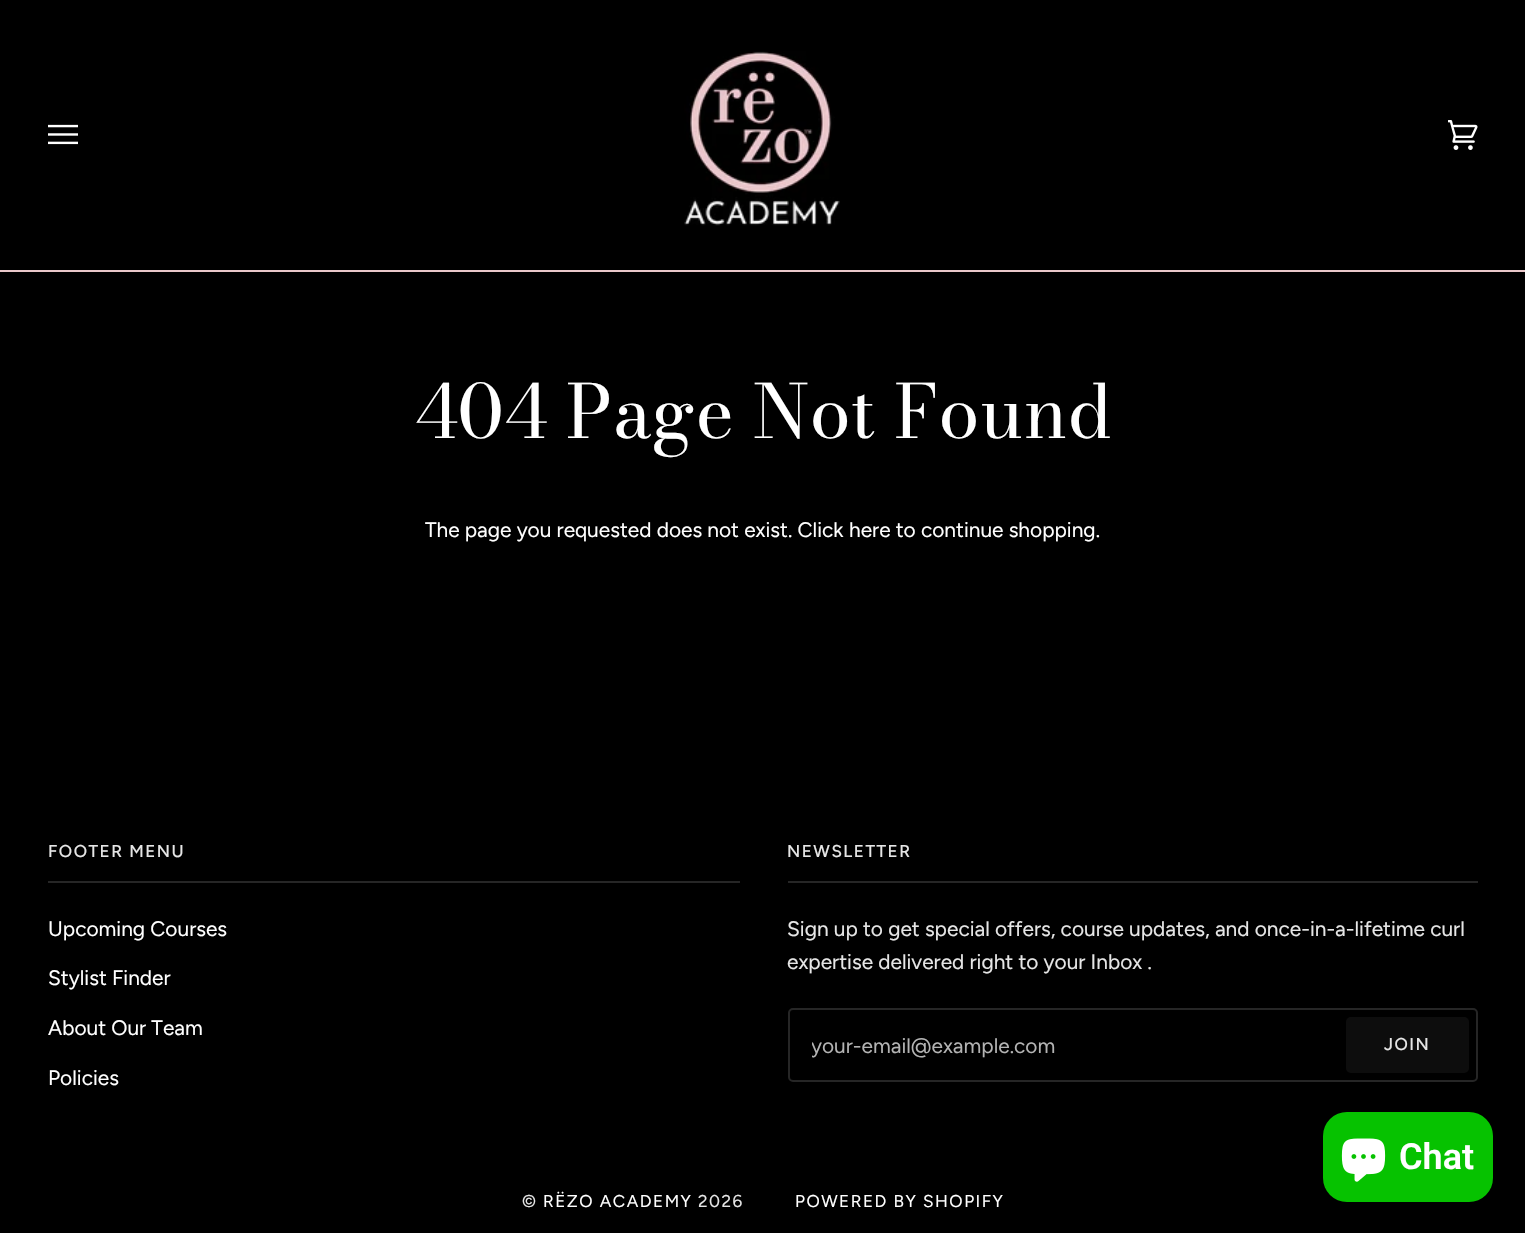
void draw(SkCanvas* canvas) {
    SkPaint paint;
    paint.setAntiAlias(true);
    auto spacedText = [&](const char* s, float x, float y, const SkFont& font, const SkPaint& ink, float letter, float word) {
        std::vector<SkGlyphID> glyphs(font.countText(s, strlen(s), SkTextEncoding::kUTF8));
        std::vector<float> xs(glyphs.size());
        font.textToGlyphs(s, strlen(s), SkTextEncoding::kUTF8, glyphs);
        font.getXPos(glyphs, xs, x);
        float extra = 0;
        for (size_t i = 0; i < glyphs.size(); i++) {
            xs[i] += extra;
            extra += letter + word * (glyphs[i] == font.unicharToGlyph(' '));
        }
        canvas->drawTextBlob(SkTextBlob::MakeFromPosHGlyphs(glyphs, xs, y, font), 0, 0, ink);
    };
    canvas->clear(0xFF000000);
    paint.setColor(0xFFEAC8CA);
    canvas->drawRect(SkRect::MakeXYWH(0, 270, 1525, 2), paint);
    canvas->drawImageRect(SkImages::DeferredFromEncodedData(SkData::MakeFromFileName("img1.png")), SkRect::MakeXYWH(48, 124, 30, 21), SkSamplingOptions());
    canvas->drawImageRect(SkImages::DeferredFromEncodedData(SkData::MakeFromFileName("img2.png")), SkRect::MakeXYWH(684, 51, 156, 175), SkSamplingOptions());
    canvas->drawImageRect(SkImages::DeferredFromEncodedData(SkData::MakeFromFileName("img3.png")), SkRect::MakeXYWH(1448, 120, 30, 30), SkSamplingOptions());
    SkFont font1(fontMgr->matchFamilyStyle("Bodoni Moda", SkFontStyle::Normal()), 73.75f);
    font1.setSubpixel(true);
    paint.setColor(0xFFFFFFFF);
    canvas->drawString("404 Page Not Found", 414, 438, font1, paint);
    SkFont font2(fontMgr->matchFamilyStyle("Figtree", SkFontStyle::Normal()), 20.9f);
    font2.setSubpixel(true);
    canvas->drawString("The page you requested does not exist. Click", 425, 537, font2, paint);
    canvas->drawString("here to continue shopping.", 849, 537, font2, paint);
    paint.setColor(0xFF262626);
    canvas->drawRect(SkRect::MakeXYWH(48, 881, 692, 2), paint);
    SkFont font3(fontMgr->matchFamilyStyle("Figtree", SkFontStyle(500, SkFontStyle::kNormal_Width, SkFontStyle::kUpright_Slant)), 17.1f);
    font3.setSubpixel(true);
    paint.setColor(0xFFE6E6E6);
    spacedText("FOOTER MENU", 48, 857, font3, paint, 1.5f, 0);
    paint.setColor(0xFFFFFFFF);
    canvas->drawString("Upcoming Courses", 48, 936, font2, paint);
    canvas->drawString("Stylist Finder", 48, 985, font2, paint);
    canvas->drawString("About Our Team", 48, 1035, font2, paint);
    canvas->drawString("Policies", 48, 1085, font2, paint);
    paint.setColor(0xFF262626);
    canvas->drawRect(SkRect::MakeXYWH(788, 881, 690, 2), paint);
    paint.setColor(0xFFE6E6E6);
    spacedText("NEWSLETTER", 787, 857, font3, paint, 1.5f, 0);
    canvas->drawString("Sign up to get special offers, course updates, and once-in-a-lifetime curl", 787, 936, font2, paint);
    canvas->drawString("expertise delivered right to your Inbox .", 787, 969, font2, paint);
    paint.setStyle(SkPaint::kStroke_Style);
    paint.setStrokeWidth(2);
    paint.setColor(0xFF262626);
    canvas->drawRoundRect(SkRect::MakeXYWH(789, 1009, 688, 72), 4, 4, paint);
    canvas->save();
    canvas->clipRect(SkRect::MakeXYWH(812, 1034, 519, 24));
    paint.setStyle(SkPaint::kFill_Style);
    paint.setColor(0xFFB3B3B3);
    canvas->drawString("your-email@example.com", 811, 1053, font2, paint);
    canvas->restore();
    paint.setColor(0xFF0D0D0D);
    canvas->drawRoundRect(SkRect::MakeXYWH(1346, 1017, 123, 56), 5, 5, paint);
    paint.setColor(0xFFE6E6E6);
    spacedText("JOIN", 1384, 1050, font3, paint, 1.5f, 0);
    SkFont font4(fontMgr->matchFamilyStyle("Figtree", SkFontStyle::Normal()), 17.1f);
    font4.setSubpixel(true);
    spacedText("©", 522, 1207, font4, paint, 1.5f, 0);
    paint.setColor(0xFFFFFFFF);
    spacedText("RËZO ACADEMY", 543, 1207, font4, paint, 1.5f, 0);
    paint.setColor(0xFFE6E6E6);
    spacedText("2026", 698, 1207, font4, paint, 1.5f, 0);
    paint.setColor(0xFFFFFFFF);
    spacedText("POWERED BY SHOPIFY", 795, 1207, font4, paint, 1.5f, 0);
    paint.setColor(0xFF06C200);
    canvas->drawRoundRect(SkRect::MakeXYWH(1323, 1112, 170, 90), 24, 24, paint);
    canvas->drawImageRect(SkImages::DeferredFromEncodedData(SkData::MakeFromFileName("img4.png")), SkRect::MakeXYWH(1341, 1138, 45, 44), SkSamplingOptions());
    SkFont font5(fontMgr->matchFamilyStyle("Roboto", SkFontStyle(600, SkFontStyle::kNormal_Width, SkFontStyle::kUpright_Slant)), 36);
    font5.setSubpixel(true);
    paint.setColor(0xFFFFFFFF);
    canvas->drawString("Chat", 1399, 1169, font5, paint);
}
